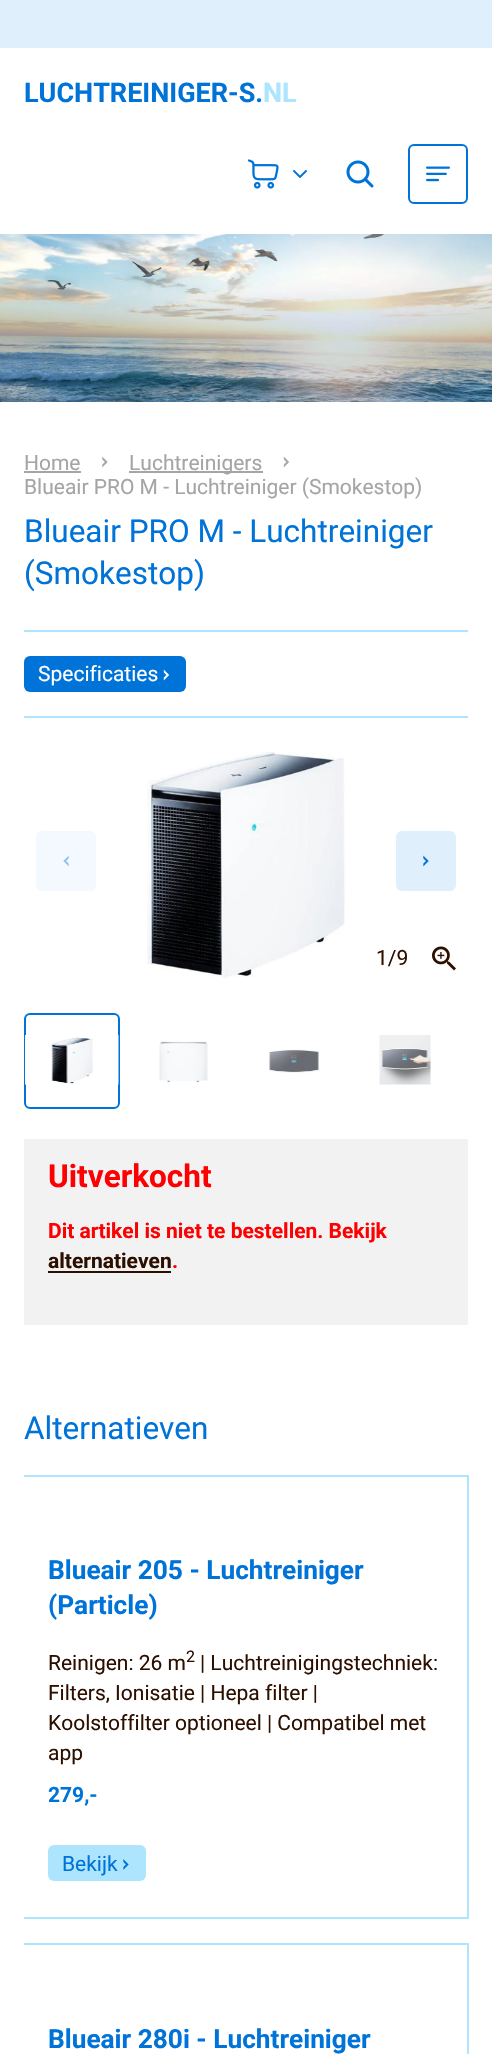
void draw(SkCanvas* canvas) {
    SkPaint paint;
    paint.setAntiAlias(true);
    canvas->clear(0xFFFFFFFF);
    paint.setColor(0xFFE0EFFC);
    canvas->drawRect(SkRect::MakeXYWH(0, 0, 492, 48), paint);
    SkFont font1(fontMgr->matchFamilyStyle("Roboto", SkFontStyle::Bold()), 27);
    font1.setSubpixel(true);
    paint.setColor(0xFF0073D8);
    canvas->drawString("LUCHTREINIGER-S.", 24, 102, font1, paint);
    paint.setColor(0xFFADE5FF);
    canvas->drawString("NL", 263, 102, font1, paint);
    canvas->drawImageRect(SkImages::DeferredFromEncodedData(SkData::MakeFromFileName("img1.png")), SkRect::MakeXYWH(247, 159, 32, 30), SkSamplingOptions());
    canvas->drawImageRect(SkImages::DeferredFromEncodedData(SkData::MakeFromFileName("img2.png")), SkRect::MakeXYWH(293, 170, 14, 8), SkSamplingOptions());
    canvas->drawImageRect(SkImages::DeferredFromEncodedData(SkData::MakeFromFileName("img3.png")), SkRect::MakeXYWH(346, 160, 28, 28), SkSamplingOptions());
    paint.setStyle(SkPaint::kStroke_Style);
    paint.setStrokeWidth(2);
    paint.setColor(0xFF0073D8);
    canvas->drawRoundRect(SkRect::MakeXYWH(409, 145, 58, 58), 5, 5, paint);
    canvas->drawImageRect(SkImages::DeferredFromEncodedData(SkData::MakeFromFileName("img4.png")), SkRect::MakeXYWH(426, 166, 24, 16), SkSamplingOptions());
    canvas->drawImageRect(SkImages::DeferredFromEncodedData(SkData::MakeFromFileName("img5.png")), SkRect::MakeXYWH(0, 234, 492, 168), SkSamplingOptions());
    SkFont font2(fontMgr->matchFamilyStyle("Roboto", SkFontStyle::Normal()), 21);
    font2.setSubpixel(true);
    paint.setStyle(SkPaint::kFill_Style);
    paint.setColor(0xFFA5A5A5);
    canvas->drawString("Home", 24, 470, font2, paint);
    canvas->drawRect(SkRect::MakeXYWH(24, 471, 57, 2), paint);
    canvas->drawImageRect(SkImages::DeferredFromEncodedData(SkData::MakeFromFileName("img6.png")), SkRect::MakeXYWH(102, 456, 6, 12), SkSamplingOptions());
    canvas->drawRect(SkRect::MakeXYWH(129, 471, 134, 2), paint);
    canvas->drawString("Luchtreinigers", 129, 470, font2, paint);
    canvas->drawImageRect(SkImages::DeferredFromEncodedData(SkData::MakeFromFileName("img7.png")), SkRect::MakeXYWH(283, 456, 6, 12), SkSamplingOptions());
    canvas->drawString("Blueair PRO M - Luchtreiniger (Smokestop)", 24, 494, font2, paint);
    SkFont font3(fontMgr->matchFamilyStyle("Roboto", SkFontStyle::Normal()), 31.5f);
    font3.setSubpixel(true);
    paint.setColor(0xFF0073D8);
    canvas->drawString("Blueair PRO M - Luchtreiniger", 24, 542, font3, paint);
    canvas->drawString("(Smokestop)", 24, 584, font3, paint);
    paint.setColor(0xFFADE5FF);
    canvas->drawRect(SkRect::MakeXYWH(24, 630, 444, 2), paint);
    paint.setColor(0xFF0073D8);
    canvas->drawRoundRect(SkRect::MakeXYWH(24, 656, 162, 36), 6, 6, paint);
    paint.setColor(0xFFFFFFFF);
    canvas->drawString("Specificaties", 38, 681, font2, paint);
    canvas->drawImageRect(SkImages::DeferredFromEncodedData(SkData::MakeFromFileName("img8.png")), SkRect::MakeXYWH(163, 669, 6, 12), SkSamplingOptions());
    paint.setColor(0xFFADE5FF);
    canvas->drawRect(SkRect::MakeXYWH(24, 716, 444, 2), paint);
    paint.setColor(0xFFF3F9FE);
    canvas->drawRoundRect(SkRect::MakeXYWH(36, 831, 60, 60), 6, 6, paint);
    canvas->drawImageRect(SkImages::DeferredFromEncodedData(SkData::MakeFromFileName("img9.png")), SkRect::MakeXYWH(63, 855, 6, 12), SkSamplingOptions());
    canvas->drawImageRect(SkImages::DeferredFromEncodedData(SkData::MakeFromFileName("img10.png")), SkRect::MakeXYWH(147, 752, 201, 226), SkSamplingOptions());
    paint.setColor(0xFFE0EFFC);
    canvas->drawRoundRect(SkRect::MakeXYWH(396, 831, 60, 60), 6, 6, paint);
    canvas->drawImageRect(SkImages::DeferredFromEncodedData(SkData::MakeFromFileName("img11.png")), SkRect::MakeXYWH(423, 855, 6, 12), SkSamplingOptions());
    paint.setColor(0xFF2D0F00);
    canvas->drawString("1/9", 376, 965, font2, paint);
    canvas->drawImageRect(SkImages::DeferredFromEncodedData(SkData::MakeFromFileName("img12.png")), SkRect::MakeXYWH(432, 946, 24, 25), SkSamplingOptions());
    paint.setStyle(SkPaint::kStroke_Style);
    paint.setColor(0xFF0073D8);
    canvas->drawRoundRect(SkRect::MakeXYWH(25, 1014, 94, 94), 5, 5, paint);
    canvas->drawImageRect(SkImages::DeferredFromEncodedData(SkData::MakeFromFileName("img13.png")), SkRect::MakeXYWH(25, 1035, 94, 50), SkSamplingOptions());
    canvas->drawImageRect(SkImages::DeferredFromEncodedData(SkData::MakeFromFileName("img14.png")), SkRect::MakeXYWH(159, 1041, 49, 42), SkSamplingOptions());
    canvas->drawImageRect(SkImages::DeferredFromEncodedData(SkData::MakeFromFileName("img15.png")), SkRect::MakeXYWH(269, 1049, 51, 24), SkSamplingOptions());
    canvas->drawImageRect(SkImages::DeferredFromEncodedData(SkData::MakeFromFileName("img16.png")), SkRect::MakeXYWH(379, 1035, 52, 50), SkSamplingOptions());
    paint.setStyle(SkPaint::kFill_Style);
    paint.setColor(0xFFF3F2F2);
    canvas->drawRect(SkRect::MakeXYWH(24, 1139, 444, 186), paint);
    SkFont font4(fontMgr->matchFamilyStyle("Roboto", SkFontStyle::Bold()), 31.5f);
    font4.setSubpixel(true);
    paint.setColor(0xFFFE0002);
    canvas->drawString("Uitverkocht", 48, 1187, font4, paint);
    SkFont font5(fontMgr->matchFamilyStyle("Roboto", SkFontStyle::Bold()), 21);
    font5.setSubpixel(true);
    canvas->drawString("Dit artikel is niet te bestellen. Bekijk", 48, 1238, font5, paint);
    paint.setColor(0xFF2D0F00);
    canvas->drawString("alternatieven", 48, 1268, font5, paint);
    canvas->drawRect(SkRect::MakeXYWH(48, 1271, 123, 2), paint);
    paint.setColor(0xFFFE0002);
    canvas->drawString(".", 172, 1268, font5, paint);
    paint.setColor(0xFF0073D8);
    canvas->drawString("Alternatieven", 24, 1439, font3, paint);
    paint.setColor(0xFFADE5FF);
    canvas->drawRect(SkRect::MakeXYWH(24, 1475, 444, 2), paint);
    canvas->drawRect(SkRect::MakeXYWH(467, 1475, 2, 444), paint);
    canvas->drawRect(SkRect::MakeXYWH(24, 1917, 444, 2), paint);
    SkFont font6(fontMgr->matchFamilyStyle("Roboto", SkFontStyle::Bold()), 26.25f);
    font6.setSubpixel(true);
    paint.setColor(0xFF0073D8);
    canvas->drawString("Blueair 205 - Luchtreiniger", 48, 1579, font6, paint);
    canvas->drawString("(Particle)", 48, 1614, font6, paint);
    paint.setColor(0xFF2D0F00);
    canvas->drawString("Reinigen: 26 m", 48, 1670, font2, paint);
    SkFont font7(fontMgr->matchFamilyStyle("Roboto", SkFontStyle::Normal()), 16);
    font7.setSubpixel(true);
    canvas->drawString("2", 186, 1662, font7, paint);
    canvas->drawString("| Luchtreinigingstechniek:", 200, 1670, font2, paint);
    canvas->drawString("Filters, Ionisatie | Hepa filter |", 48, 1700, font2, paint);
    canvas->drawString("Koolstoffilter optioneel | Compatibel met", 48, 1730, font2, paint);
    canvas->drawString("app", 48, 1760, font2, paint);
    paint.setColor(0xFF0073D8);
    canvas->drawString("279,-", 48, 1802, font5, paint);
    paint.setColor(0xFFADE5FF);
    canvas->drawRoundRect(SkRect::MakeXYWH(48, 1845, 98, 36), 6, 6, paint);
    paint.setColor(0xFF0073D8);
    canvas->drawString("Bekijk", 62, 1871, font2, paint);
    canvas->drawImageRect(SkImages::DeferredFromEncodedData(SkData::MakeFromFileName("img17.png")), SkRect::MakeXYWH(123, 1859, 6, 11), SkSamplingOptions());
    paint.setColor(0xFFADE5FF);
    canvas->drawRect(SkRect::MakeXYWH(24, 1943, 444, 2), paint);
    canvas->drawRect(SkRect::MakeXYWH(467, 1943, 2, 111), paint);
    paint.setColor(0xFF0073D8);
    canvas->drawString("Blueair 280i - Luchtreiniger", 48, 2048, font6, paint);
}
